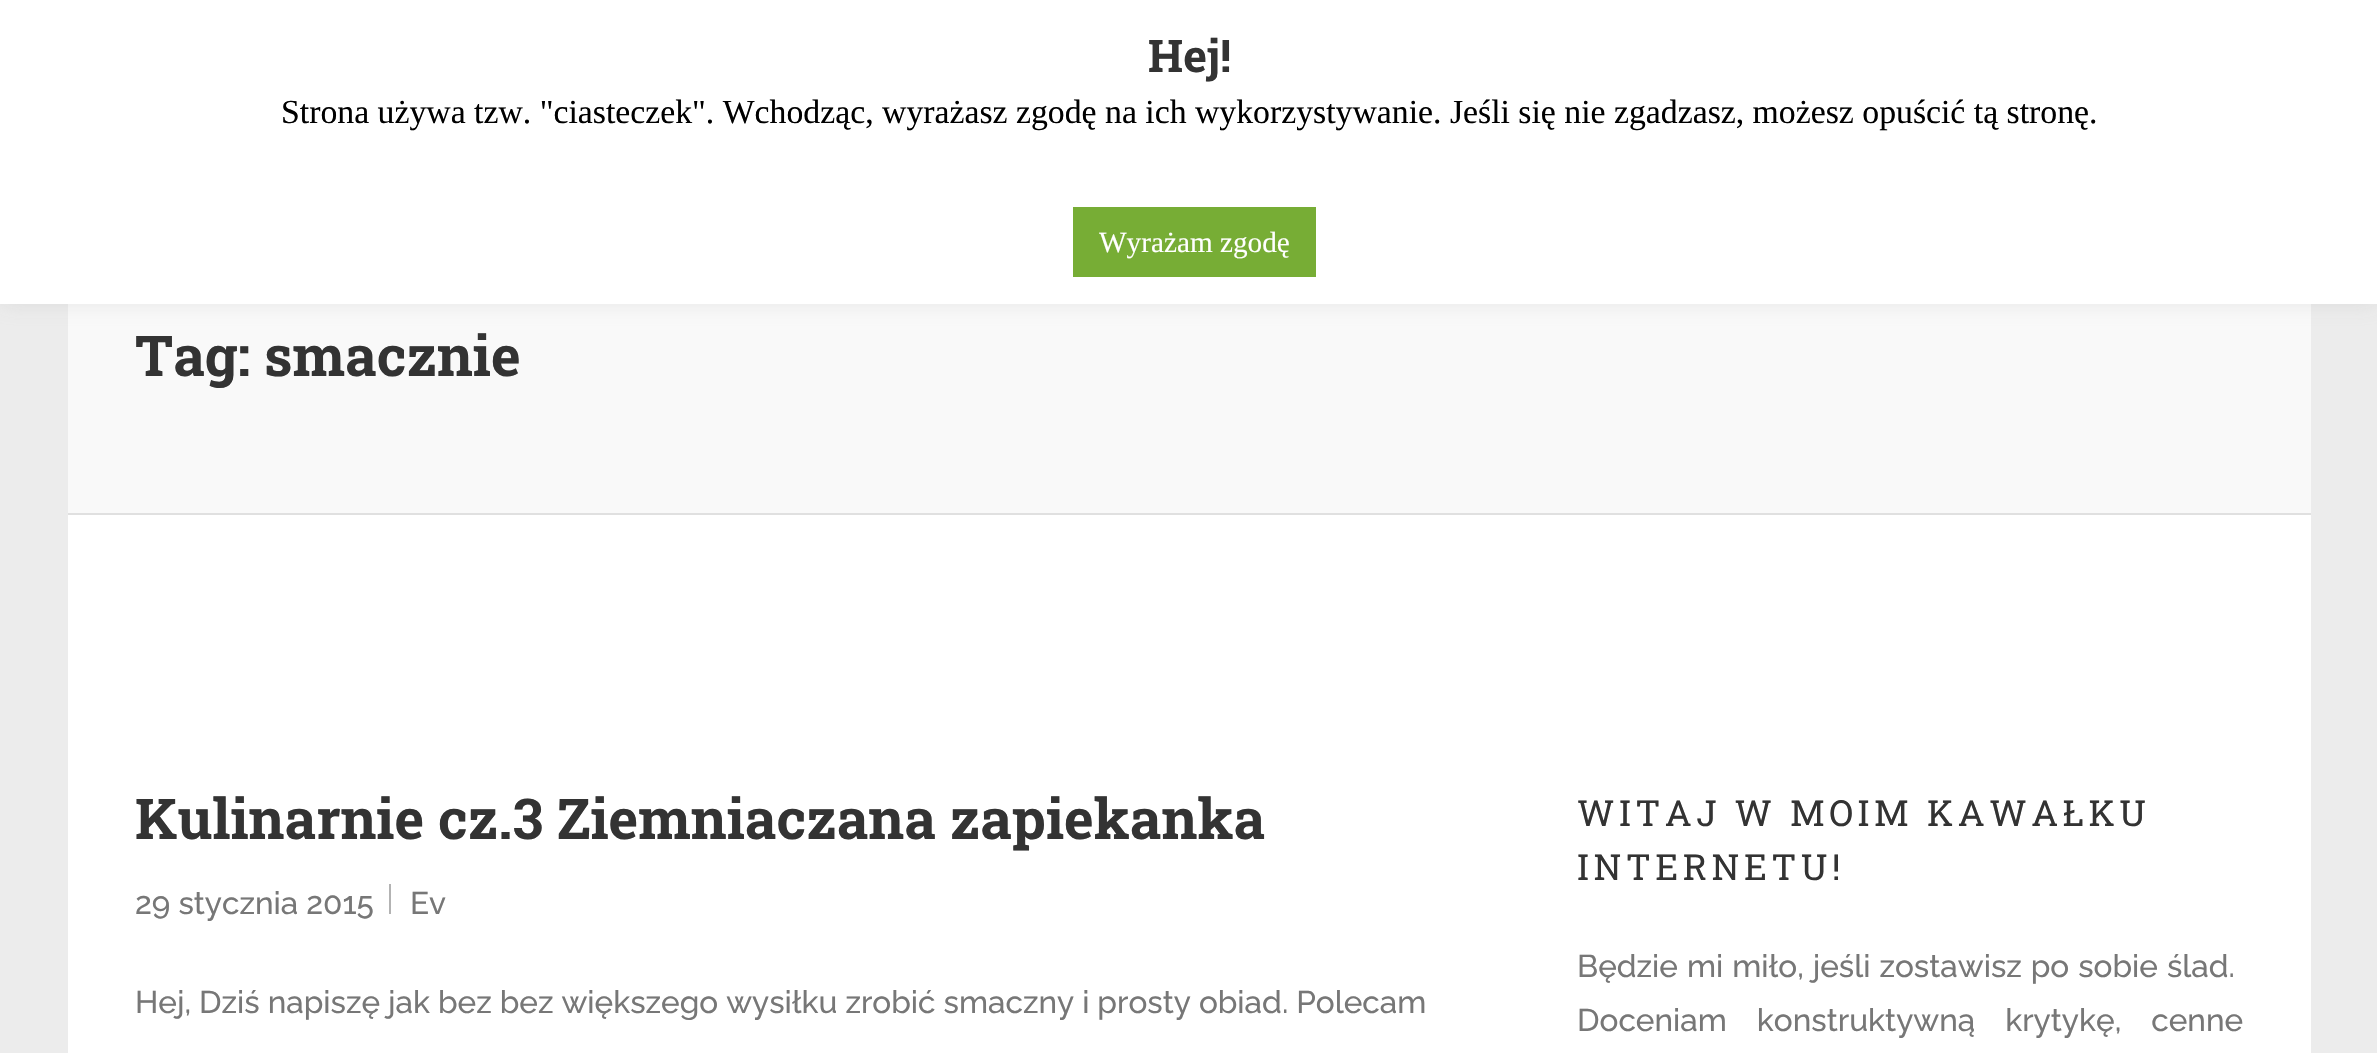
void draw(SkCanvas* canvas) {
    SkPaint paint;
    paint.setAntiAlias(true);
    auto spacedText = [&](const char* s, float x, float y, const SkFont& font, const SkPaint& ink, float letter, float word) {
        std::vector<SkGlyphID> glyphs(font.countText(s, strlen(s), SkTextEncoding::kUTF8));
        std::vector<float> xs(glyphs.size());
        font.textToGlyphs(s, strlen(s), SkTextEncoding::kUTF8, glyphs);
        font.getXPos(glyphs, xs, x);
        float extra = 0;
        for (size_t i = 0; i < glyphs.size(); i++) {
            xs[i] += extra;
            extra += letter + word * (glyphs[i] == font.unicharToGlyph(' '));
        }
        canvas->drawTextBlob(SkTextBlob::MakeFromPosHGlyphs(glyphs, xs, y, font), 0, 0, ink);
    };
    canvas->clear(0xFFECECEC);
    paint.setColor(0xFFF9F9F9);
    canvas->drawRect(SkRect::MakeXYWH(68, 304, 2243, 209), paint);
    paint.setColor(0x4DACABAB);
    paint.setMaskFilter(SkMaskFilter::MakeBlur(kNormal_SkBlurStyle, 11));
    canvas->drawRect(SkRect::MakeXYWH(0, -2, 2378, 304), paint);
    paint.setMaskFilter(nullptr);
    paint.setColor(0xFFFFFFFF);
    canvas->drawRect(SkRect::MakeXYWH(0, 0, 2377, 304), paint);
    SkFont font1(fontMgr->matchFamilyStyle("Roboto Slab", SkFontStyle::Bold()), 45);
    font1.setSubpixel(true);
    paint.setColor(0xFF333333);
    canvas->drawString("Hej!", 1148, 72, font1, paint);
    SkFont font2(fontMgr->matchFamilyStyle("Liberation Serif", SkFontStyle::Normal()), 33.75f);
    font2.setSubpixel(true);
    paint.setColor(0xFF000000);
    canvas->drawString("Strona używa tzw. \"ciasteczek\". Wchodząc, wyrażasz zgodę na ich wykorzystywanie. Jeśli się nie zgadzasz, możesz opuścić tą stronę.", 281, 123, font2, paint);
    paint.setColor(0xFF77AD35);
    canvas->drawRect(SkRect::MakeXYWH(1073, 207, 243, 70), paint);
    SkFont font3(fontMgr->matchFamilyStyle("Liberation Serif", SkFontStyle::Normal()), 29.25f);
    font3.setSubpixel(true);
    paint.setColor(0xFFFFFFFF);
    canvas->drawString("Wyrażam zgodę", 1099, 252, font3, paint);
    canvas->drawRect(SkRect::MakeXYWH(68, 515, 2243, 538), paint);
    paint.setColor(0xFFE0E0E0);
    canvas->drawRect(SkRect::MakeXYWH(68, 513, 2243, 2), paint);
    SkFont font4(fontMgr->matchFamilyStyle("Roboto Slab", SkFontStyle::Bold()), 56.25f);
    font4.setSubpixel(true);
    paint.setColor(0xFF333333);
    canvas->drawString("Tag: smacznie", 135, 376, font4, paint);
    canvas->drawString("Kulinarnie cz.3 Ziemniaczana zapiekanka", 135, 839, font4, paint);
    SkFont font5(fontMgr->matchFamilyStyle("Raleway", SkFontStyle(100, SkFontStyle::kNormal_Width, SkFontStyle::kUpright_Slant)), 31.5f);
    font5.setSubpixel(true);
    paint.setColor(0xFF777777);
    canvas->drawString("29 stycznia 2015", 135, 914, font5, paint);
    paint.setColor(0xFFB3B3B3);
    canvas->drawRect(SkRect::MakeXYWH(389, 884, 2, 30), paint);
    paint.setColor(0xFF777777);
    canvas->drawString("Ev", 410, 914, font5, paint);
    canvas->drawString("Hej, Dziś napiszę jak bez bez większego wysiłku zrobić smaczny i prosty obiad. Polecam", 135, 1013, font5, paint);
    SkFont font6(fontMgr->matchFamilyStyle("Roboto Slab", SkFontStyle::Normal()), 36);
    font6.setSubpixel(true);
    paint.setColor(0xFF333333);
    spacedText("WITAJ W MOIM KAWAŁKU", 1577, 826, font6, paint, 4.5f, 0);
    spacedText("INTERNETU!", 1577, 880, font6, paint, 4.5f, 0);
    paint.setColor(0xFF777777);
    spacedText("Będzie mi miło, jeśli zostawisz po sobie ślad.", 1577, 977, font5, paint, 0, 1);
    spacedText("Doceniam konstruktywną krytykę, cenne", 1577, 1031, font5, paint, 0, 22);
}
